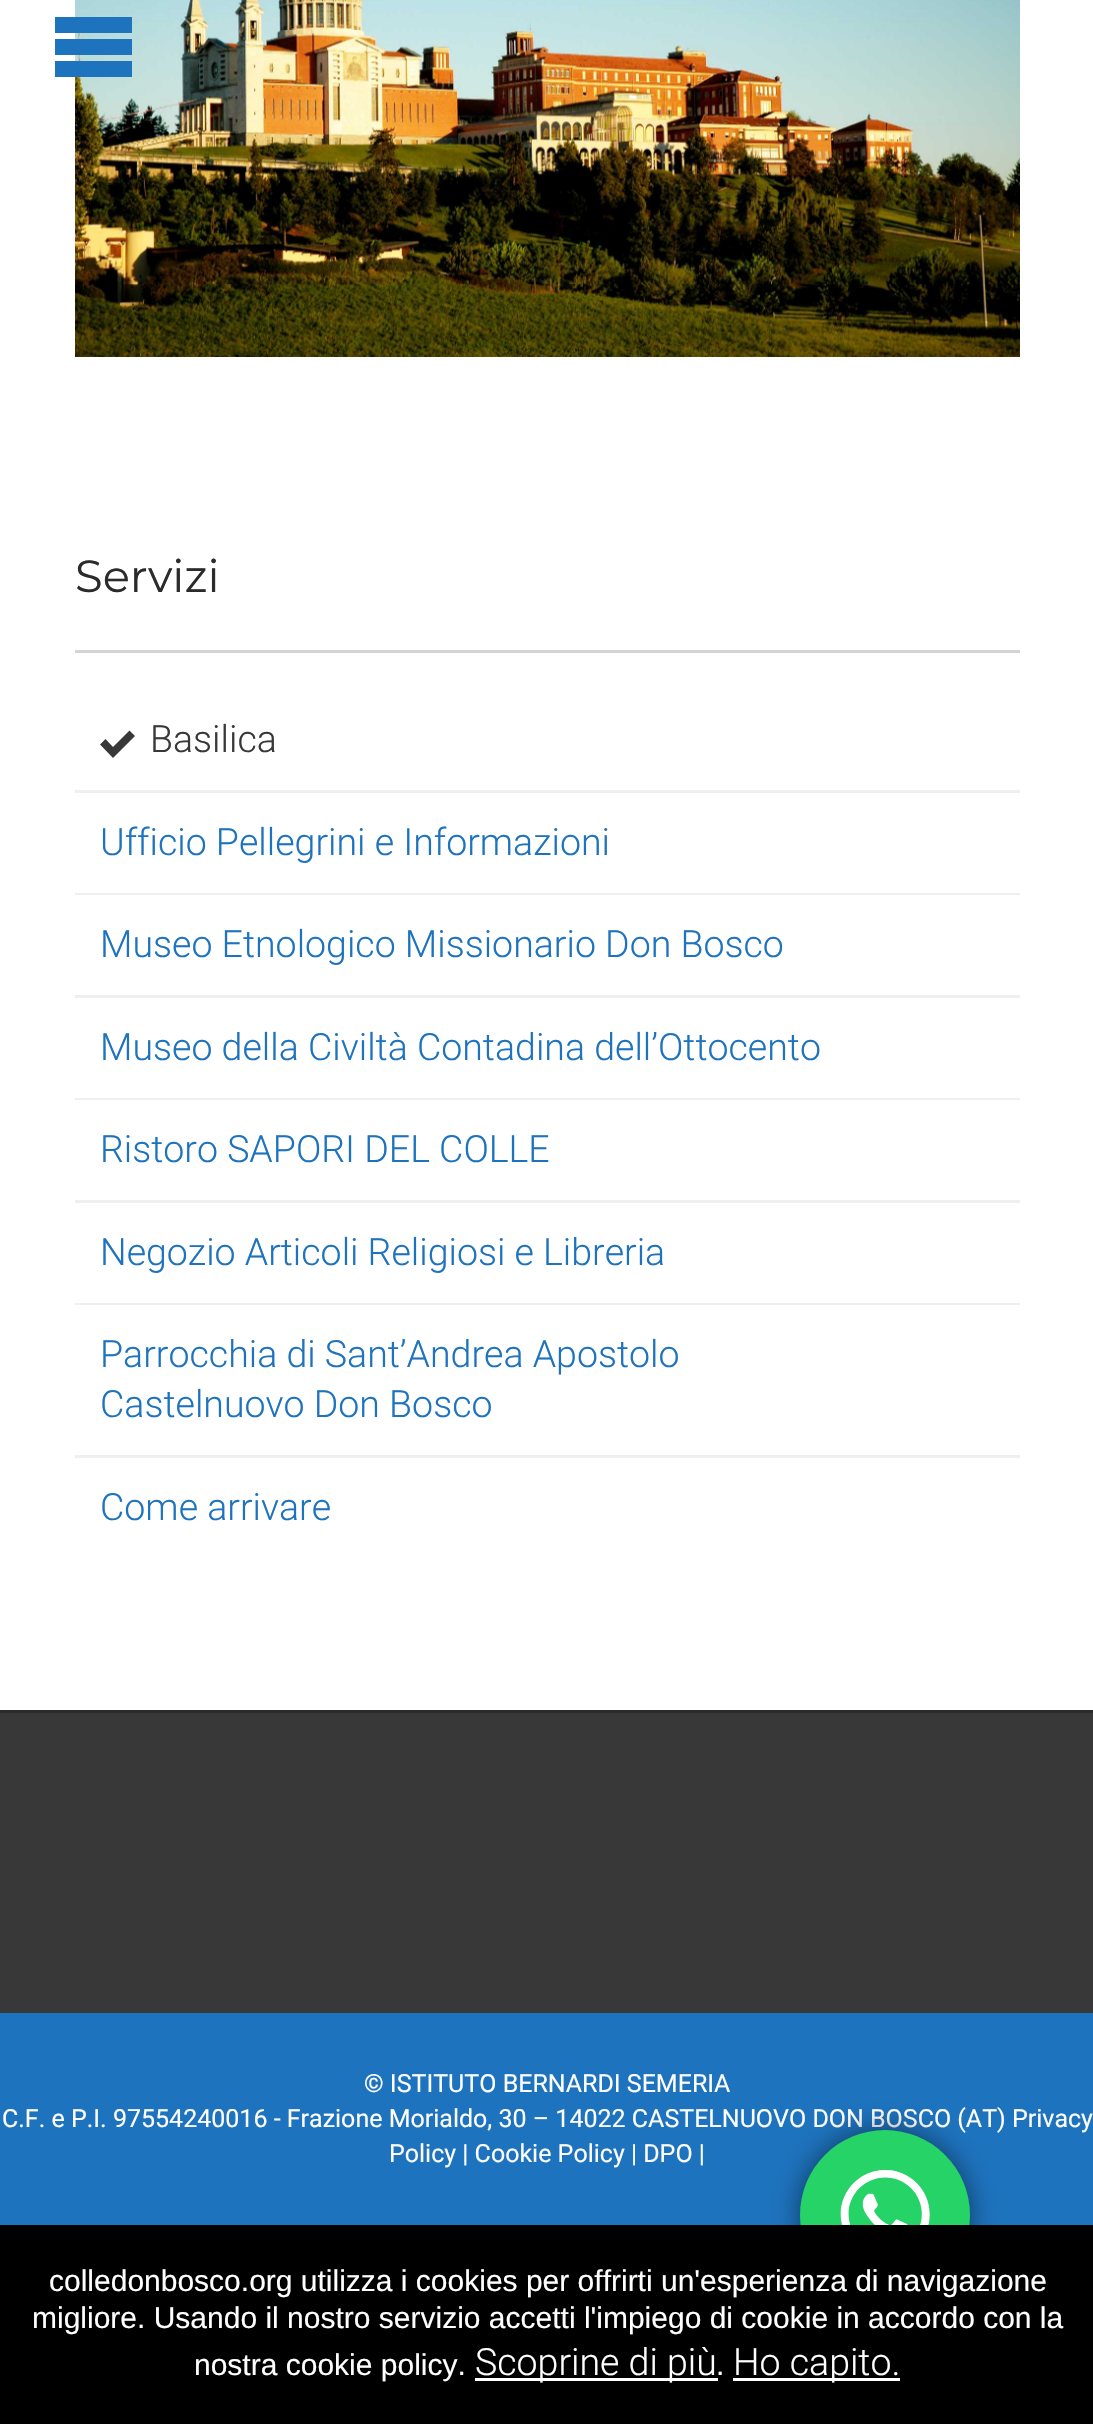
void draw(SkCanvas* canvas) {
    SkPaint paint;
    paint.setAntiAlias(true);
    canvas->clear(0xFFFFFFFF);
    canvas->drawImageRect(SkImages::DeferredFromEncodedData(SkData::MakeFromFileName("img1.png")), SkRect::MakeXYWH(75, 0, 945, 357), SkSamplingOptions());
    paint.setColor(0xFF1E73BE);
    canvas->drawPath(SkPathBuilder().moveTo(55, 17).lineTo(132, 17).lineTo(132, 33).lineTo(55, 33).close().moveTo(55, 39).lineTo(132, 39).lineTo(132, 55).lineTo(55, 55).close().moveTo(55, 61).lineTo(132, 61).lineTo(132, 77).lineTo(55, 77).close().detach(), paint);
    paint.setColor(0xFFD4D4D4);
    canvas->drawRect(SkRect::MakeXYWH(75, 650, 945, 3), paint);
    SkFont font1(fontMgr->matchFamilyStyle("Montserrat", SkFontStyle::Normal()), 45);
    font1.setSubpixel(true);
    paint.setColor(0xFF2B2B2B);
    canvas->drawString("Servizi", 75, 592, font1, paint);
    paint.setColor(0xFFEFEFEF);
    canvas->drawRect(SkRect::MakeXYWH(75, 790, 945, 3), paint);
    paint.setColor(0xFF383838);
    canvas->drawPath(SkPathBuilder().moveTo(129.5f, 730.5f).lineTo(113, 747).lineTo(105.5f, 739).lineTo(100, 744.5f).lineTo(113, 758).lineTo(135, 736).close().detach(), paint);
    SkFont font2(fontMgr->matchFamilyStyle("Roboto", SkFontStyle(300, SkFontStyle::kNormal_Width, SkFontStyle::kUpright_Slant)), 37.5f);
    font2.setSubpixel(true);
    canvas->drawString("Basilica", 150, 752, font2, paint);
    paint.setColor(0xFFEFEFEF);
    canvas->drawRect(SkRect::MakeXYWH(75, 893, 945, 2), paint);
    paint.setColor(0xFF1E73BE);
    canvas->drawString("Ufficio Pellegrini e Informazioni", 100, 855, font2, paint);
    paint.setColor(0xFFEFEFEF);
    canvas->drawRect(SkRect::MakeXYWH(75, 995, 945, 3), paint);
    paint.setColor(0xFF1E73BE);
    canvas->drawString("Museo Etnologico Missionario Don Bosco", 100, 957, font2, paint);
    paint.setColor(0xFFEFEFEF);
    canvas->drawRect(SkRect::MakeXYWH(75, 1098, 945, 2), paint);
    paint.setColor(0xFF1E73BE);
    canvas->drawString("Museo della Civiltà Contadina dell’Ottocento", 100, 1060, font2, paint);
    paint.setColor(0xFFEFEFEF);
    canvas->drawRect(SkRect::MakeXYWH(75, 1200, 945, 3), paint);
    paint.setColor(0xFF1E73BE);
    canvas->drawString("Ristoro SAPORI DEL COLLE", 100, 1162, font2, paint);
    paint.setColor(0xFFEFEFEF);
    canvas->drawRect(SkRect::MakeXYWH(75, 1303, 945, 2), paint);
    paint.setColor(0xFF1E73BE);
    canvas->drawString("Negozio Articoli Religiosi e Libreria", 100, 1265, font2, paint);
    paint.setColor(0xFFEFEFEF);
    canvas->drawRect(SkRect::MakeXYWH(75, 1455, 945, 3), paint);
    paint.setColor(0xFF1E73BE);
    canvas->drawString("Parrocchia di Sant’Andrea Apostolo", 100, 1367, font2, paint);
    canvas->drawString("Castelnuovo Don Bosco", 100, 1417, font2, paint);
    canvas->drawString("Come arrivare", 100, 1520, font2, paint);
    paint.setColor(0xFF383838);
    canvas->drawRect(SkRect::MakeXYWH(0, 1713, 1093, 300), paint);
    paint.setColor(0xFF2B2B2B);
    canvas->drawRect(SkRect::MakeXYWH(0, 1710, 1093, 3), paint);
    paint.setColor(0xFF1E73BE);
    canvas->drawRect(SkRect::MakeXYWH(0, 2013, 1093, 212), paint);
    SkFont font3(fontMgr->matchFamilyStyle("Roboto", SkFontStyle::Normal()), 25);
    font3.setSubpixel(true);
    paint.setColor(0xFFFFFFFF);
    canvas->drawString("© ISTITUTO BERNARDI SEMERIA", 364, 2092, font3, paint);
    canvas->drawString("C.F. e P.I. 97554240016 - Frazione Morialdo, 30 – 14022 CASTELNUOVO DON BOSCO (AT) Privacy", 2, 2127, font3, paint);
    canvas->drawString("Policy | Cookie Policy | DPO |", 389, 2162, font3, paint);
    paint.setColor(0x80000000);
    paint.setMaskFilter(SkMaskFilter::MakeBlur(kNormal_SkBlurStyle, 14));
    canvas->drawRoundRect(SkRect::MakeXYWH(800, 2130, 170, 170), 85, 85, paint);
    paint.setMaskFilter(nullptr);
    paint.setColor(0xFF25D366);
    canvas->drawCircle(885, 2215, 85, paint);
    canvas->drawImageRect(SkImages::DeferredFromEncodedData(SkData::MakeFromFileName("img2.png")), SkRect::MakeXYWH(840, 2170, 90, 55), SkSamplingOptions());
    paint.setColor(0xFF000000);
    canvas->drawRect(SkRect::MakeXYWH(0, 2225, 1093, 199), paint);
    SkFont font4(fontMgr->matchFamilyStyle("Liberation Sans", SkFontStyle::Normal()), 30);
    font4.setSubpixel(true);
    paint.setColor(0xFFFFFFFF);
    canvas->drawString("colledonbosco.org utilizza i cookies per offrirti un'esperienza di navigazione", 49, 2291, font4, paint);
    canvas->drawString("migliore. Usando il nostro servizio accetti l'impiego di cookie in accordo con la", 32, 2328, font4, paint);
    canvas->drawString("nostra cookie policy.", 194, 2375, font4, paint);
    canvas->drawRect(SkRect::MakeXYWH(475, 2378, 243, 3), paint);
    canvas->drawString("Scoprine di più", 475, 2375, font2, paint);
    canvas->drawString(".", 716, 2375, font4, paint);
    canvas->drawRect(SkRect::MakeXYWH(733, 2378, 167, 3), paint);
    canvas->drawString("Ho capito.", 733, 2375, font2, paint);
}
